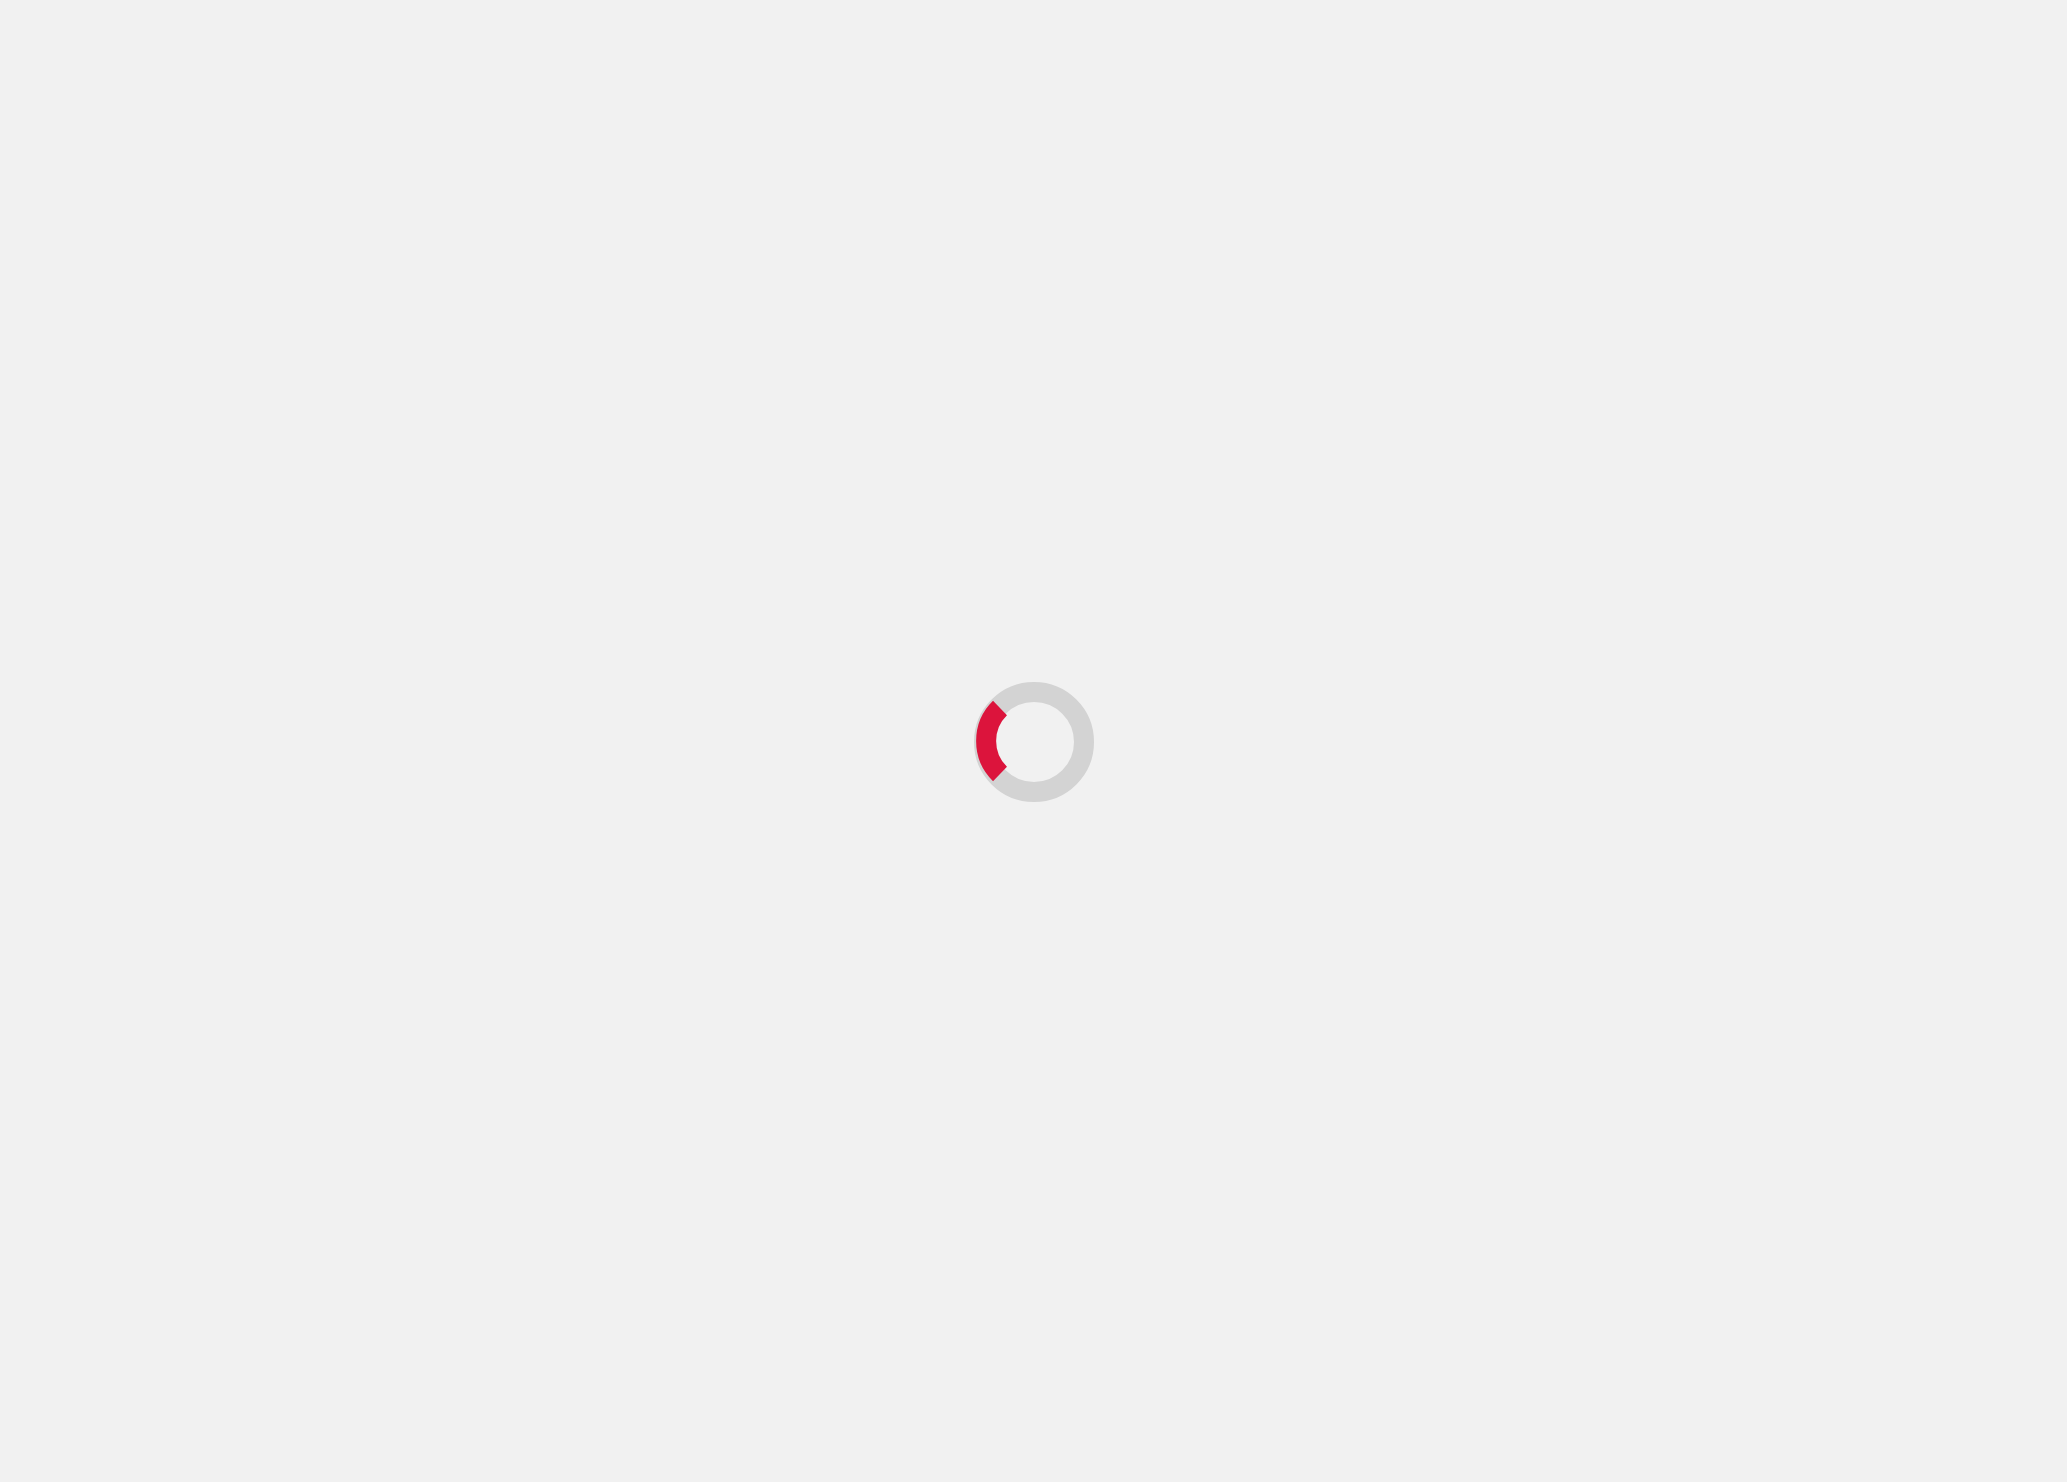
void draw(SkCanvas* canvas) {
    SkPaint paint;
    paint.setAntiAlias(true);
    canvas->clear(0xFFF1F1F1);
    paint.setStyle(SkPaint::kStroke_Style);
    paint.setStrokeWidth(20);
    paint.setColor(0xFFD3D3D3);
    canvas->drawCircle(1034, 742, 50, paint);
    paint.setColor(0xFFDC143C);
    canvas->drawPath(SkPathBuilder().moveTo(1000, 774).cubicTo(981.5f, 756, 981.5f, 726, 1000, 708).detach(), paint);
}
